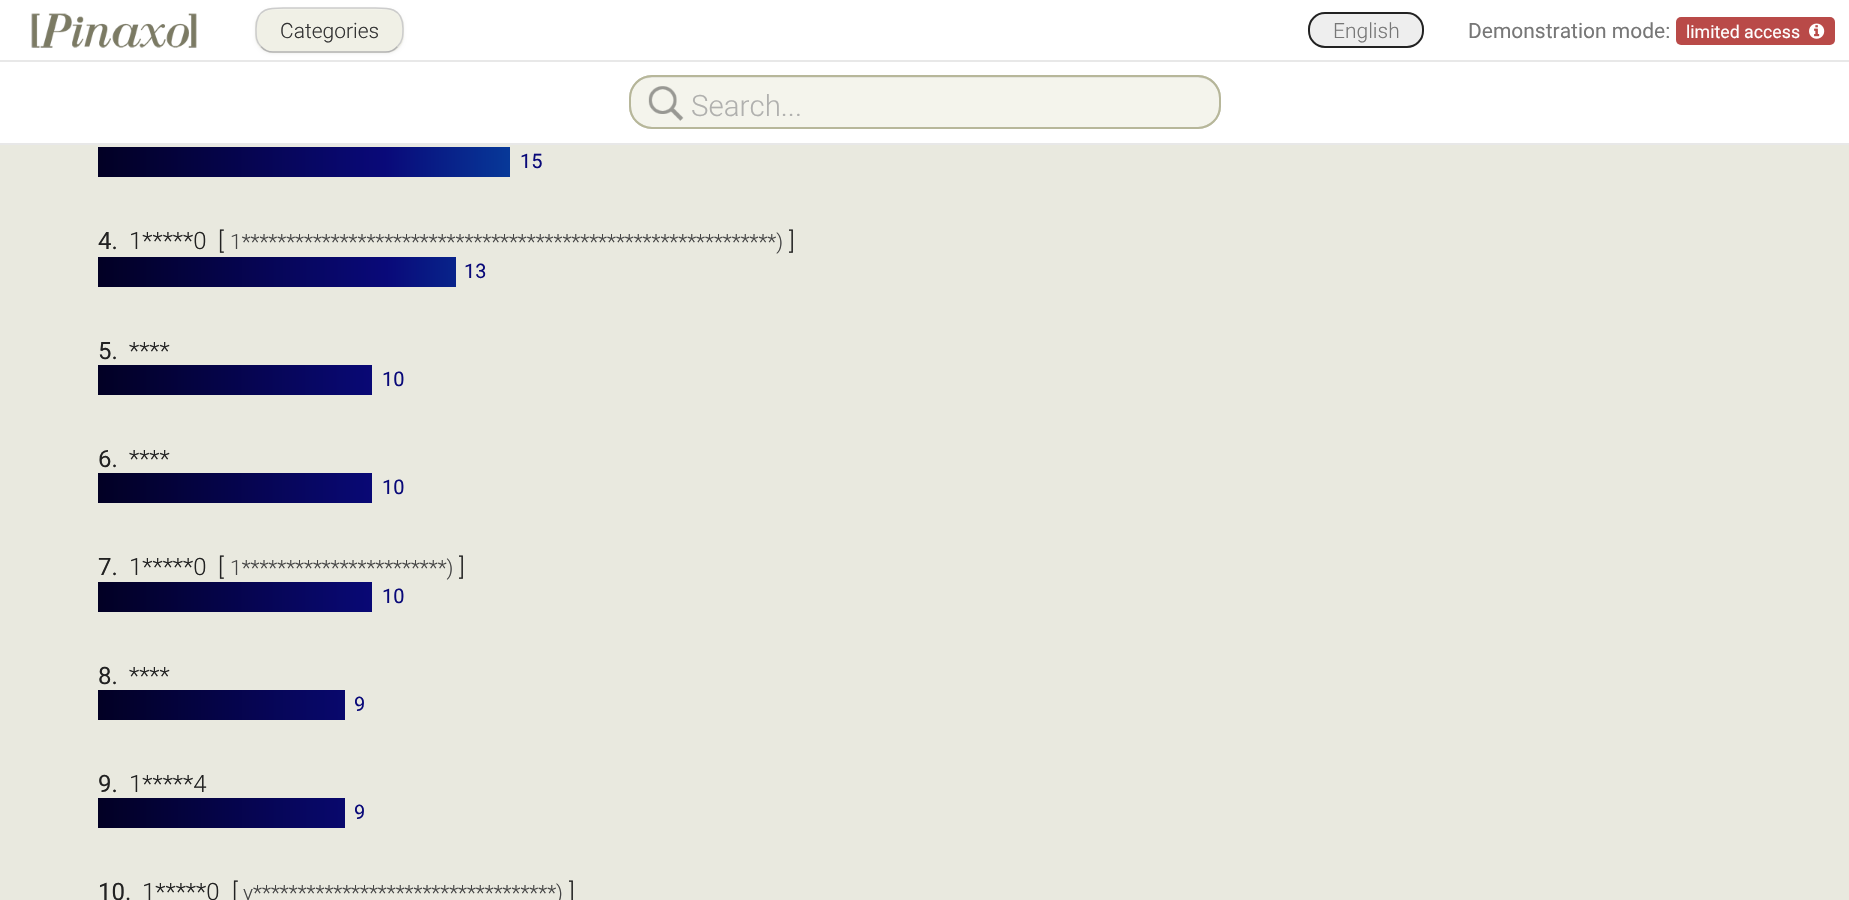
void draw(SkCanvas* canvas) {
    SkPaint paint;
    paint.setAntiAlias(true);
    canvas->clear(0xFFE9E9DF);
    paint.setColor(0xFFFFFFFF);
    canvas->drawRect(SkRect::MakeXYWH(0, 0, 1849, 60), paint);
    paint.setColor(0xFFE8E8E8);
    canvas->drawRect(SkRect::MakeXYWH(0, 60, 1849, 2), paint);
    canvas->drawImageRect(SkImages::DeferredFromEncodedData(SkData::MakeFromFileName("img1.png")), SkRect::MakeXYWH(31, 13, 166, 35), SkSamplingOptions());
    paint.setColor(0x0D000000);
    paint.setMaskFilter(SkMaskFilter::MakeBlur(kNormal_SkBlurStyle, 1.5f));
    canvas->drawRoundRect(SkRect::MakeXYWH(255, 9, 149, 45), 18, 18, paint);
    paint.setMaskFilter(nullptr);
    paint.setColor(0xFFF0F0E6);
    canvas->drawRoundRect(SkRect::MakeXYWH(255, 8, 149, 45), 18, 18, paint);
    paint.setColor(0xFFF3F3EB);
    canvas->drawPath(SkPathBuilder().moveTo(273, 10).lineTo(386, 10).cubicTo(395, 10, 402, 18, 402, 27).lineTo(402, 26).cubicTo(402, 17, 394, 9, 385, 9).lineTo(274, 9).cubicTo(268, 9, 263, 12, 260, 16).cubicTo(263, 13, 268, 10, 273, 10).close().detach(), paint);
    paint.setStyle(SkPaint::kStroke_Style);
    paint.setStrokeWidth(1.5f);
    paint.setColor(0xFFB3B3B3);
    canvas->drawPath(SkPathBuilder().moveTo(397.5f, 46.5f).cubicTo(394.5f, 50, 390, 52, 385.5f, 52).lineTo(273, 52).cubicTo(268.5f, 52, 264, 50, 261, 46.5f).detach(), paint);
    paint.setColor(0xFFCCCCCC);
    canvas->drawPath(SkPathBuilder().moveTo(261, 46.5f).cubicTo(255.5f, 41.5f, 256, 35, 256, 28.5f).cubicTo(256, 5, 273.5f, 8, 292, 8).lineTo(367, 8).cubicTo(385, 8, 403, 5, 403, 28.5f).cubicTo(403, 35, 403, 41.5f, 397.5f, 46.5f).detach(), paint);
    SkFont font1(fontMgr->matchFamilyStyle("Roboto", SkFontStyle(300, SkFontStyle::kNormal_Width, SkFontStyle::kUpright_Slant)), 21);
    font1.setSubpixel(true);
    paint.setStyle(SkPaint::kFill_Style);
    paint.setColor(0xFF333333);
    canvas->drawString("Categories", 280, 38, font1, paint);
    paint.setColor(0xFFEEEEEE);
    canvas->drawRoundRect(SkRect::MakeXYWH(1309, 13, 114, 34), 16, 16, paint);
    paint.setStyle(SkPaint::kStroke_Style);
    paint.setStrokeWidth(2);
    paint.setColor(0xFF222222);
    canvas->drawRoundRect(SkRect::MakeXYWH(1309, 13, 114, 34), 16, 16, paint);
    paint.setStyle(SkPaint::kFill_Style);
    paint.setColor(0xFF777777);
    canvas->drawString("English", 1333, 38, font1, paint);
    SkFont font2(fontMgr->matchFamilyStyle("roboto", SkFontStyle::Normal()), 21);
    font2.setSubpixel(true);
    canvas->drawString("Demonstration mode:", 1468, 38, font2, paint);
    paint.setColor(0xFFB94A48);
    canvas->drawRoundRect(SkRect::MakeXYWH(1676, 17, 159, 28), 5, 5, paint);
    SkFont font3(fontMgr->matchFamilyStyle("roboto", SkFontStyle::Normal()), 17.75f);
    font3.setSubpixel(true);
    paint.setColor(0xFFFFFFFF);
    canvas->drawString("limited access", 1686, 38, font3, paint);
    canvas->drawImageRect(SkImages::DeferredFromEncodedData(SkData::MakeFromFileName("img2.png")), SkRect::MakeXYWH(1809, 23, 16, 16), SkSamplingOptions());
    canvas->drawRect(SkRect::MakeXYWH(0, 62, 1849, 81), paint);
    paint.setColor(0xFFE8E8E8);
    canvas->drawRect(SkRect::MakeXYWH(0, 143, 1849, 2), paint);
    paint.setColor(0xFFF4F4EC);
    canvas->drawRoundRect(SkRect::MakeXYWH(630, 76, 590, 52), 22, 22, paint);
    paint.setStyle(SkPaint::kStroke_Style);
    paint.setColor(0xFFC5C5AE);
    canvas->drawRoundRect(SkRect::MakeXYWH(630, 76, 590, 52), 22, 22, paint);
    canvas->drawImageRect(SkImages::DeferredFromEncodedData(SkData::MakeFromFileName("img3.png")), SkRect::MakeXYWH(648, 86, 36, 35), SkSamplingOptions());
    paint.setStyle(SkPaint::kFill_Style);
    paint.setColor(0x0F000000);
    canvas->drawPath(SkPathBuilder().moveTo(651, 78).lineTo(1198, 78).cubicTo(1210, 78, 1220, 87, 1220, 99).lineTo(1220, 98).cubicTo(1220, 86, 1211, 77, 1199, 77).lineTo(651, 77).cubicTo(639, 77, 630, 86, 630, 98).lineTo(630, 99).cubicTo(630, 87, 639, 78, 651, 78).close().detach(), paint);
    paint.setStyle(SkPaint::kStroke_Style);
    paint.setColor(0xBFB1B293);
    canvas->drawRoundRect(SkRect::MakeXYWH(630, 76, 590, 52), 22, 22, paint);
    SkFont font4(fontMgr->matchFamilyStyle("Roboto", SkFontStyle(300, SkFontStyle::kNormal_Width, SkFontStyle::kUpright_Slant)), 29.5f);
    font4.setSubpixel(true);
    paint.setStyle(SkPaint::kFill_Style);
    paint.setColor(0xFFB0B0AE);
    canvas->drawString("Search...", 691, 116, font4, paint);
    {
        const SkColor colors[] = {0xFF020024, 0xFF090979, 0xFF00D4FF};
        const float stops[] = {0, 0.35f, 1};
        const SkPoint ends[] = {{98, 162}, {918, 162}};
        paint.setShader(SkGradientShader::MakeLinear(ends, colors, stops, 3, SkTileMode::kClamp));
        paint.setAlpha(255);
    }
    canvas->drawRect(SkRect::MakeXYWH(98, 147, 412, 30), paint);
    SkFont font5(fontMgr->matchFamilyStyle("roboto", SkFontStyle::Normal()), 20);
    font5.setSubpixel(true);
    paint.setShader(nullptr);
    paint.setColor(0xFF090979);
    canvas->drawString("15", 520, 168, font5, paint);
    SkFont font6(fontMgr->matchFamilyStyle("roboto", SkFontStyle::Normal()), 24);
    font6.setSubpixel(true);
    paint.setColor(0xFF222222);
    canvas->drawString("4.", 98, 249, font6, paint);
    SkFont font7(fontMgr->matchFamilyStyle("Roboto", SkFontStyle(300, SkFontStyle::kNormal_Width, SkFontStyle::kUpright_Slant)), 24);
    font7.setSubpixel(true);
    canvas->drawString("1*****0", 129, 249, font7, paint);
    canvas->drawString("[", 218, 249, font7, paint);
    paint.setColor(0xFF444444);
    canvas->drawString("1************************************************************)", 230, 249, font1, paint);
    paint.setColor(0xFF222222);
    canvas->drawString("]", 789, 249, font7, paint);
    {
        const SkColor colors[] = {0xFF020024, 0xFF090979, 0xFF00D4FF};
        const float stops[] = {0, 0.35f, 1};
        const SkPoint ends[] = {{98, 272}, {922, 272}};
        paint.setShader(SkGradientShader::MakeLinear(ends, colors, stops, 3, SkTileMode::kClamp));
        paint.setAlpha(255);
    }
    canvas->drawRect(SkRect::MakeXYWH(98, 257, 358, 30), paint);
    paint.setShader(nullptr);
    paint.setColor(0xFF090979);
    canvas->drawString("13", 464, 278, font5, paint);
    paint.setColor(0xFF222222);
    canvas->drawString("5.", 98, 359, font6, paint);
    canvas->drawString("****", 129, 359, font7, paint);
    {
        const SkColor colors[] = {0xFF020024, 0xFF090979, 0xFF00D4FF};
        const float stops[] = {0, 0.35f, 1};
        const SkPoint ends[] = {{98, 380}, {918, 380}};
        paint.setShader(SkGradientShader::MakeLinear(ends, colors, stops, 3, SkTileMode::kClamp));
        paint.setAlpha(255);
    }
    canvas->drawRect(SkRect::MakeXYWH(98, 365, 274, 30), paint);
    paint.setShader(nullptr);
    paint.setColor(0xFF090979);
    canvas->drawString("10", 382, 386, font5, paint);
    paint.setColor(0xFF222222);
    canvas->drawString("6.", 98, 467, font6, paint);
    canvas->drawString("****", 129, 467, font7, paint);
    {
        const SkColor colors[] = {0xFF020024, 0xFF090979, 0xFF00D4FF};
        const float stops[] = {0, 0.35f, 1};
        const SkPoint ends[] = {{98, 488}, {918, 488}};
        paint.setShader(SkGradientShader::MakeLinear(ends, colors, stops, 3, SkTileMode::kClamp));
        paint.setAlpha(255);
    }
    canvas->drawRect(SkRect::MakeXYWH(98, 473, 274, 30), paint);
    paint.setShader(nullptr);
    paint.setColor(0xFF090979);
    canvas->drawString("10", 382, 494, font5, paint);
    paint.setColor(0xFF222222);
    canvas->drawString("7.", 98, 575, font6, paint);
    canvas->drawString("1*****0", 129, 575, font7, paint);
    canvas->drawString("[", 218, 575, font7, paint);
    paint.setColor(0xFF444444);
    canvas->drawString("1***********************)", 230, 575, font1, paint);
    paint.setColor(0xFF222222);
    canvas->drawString("]", 459, 575, font7, paint);
    {
        const SkColor colors[] = {0xFF020024, 0xFF090979, 0xFF00D4FF};
        const float stops[] = {0, 0.35f, 1};
        const SkPoint ends[] = {{98, 597}, {918, 597}};
        paint.setShader(SkGradientShader::MakeLinear(ends, colors, stops, 3, SkTileMode::kClamp));
        paint.setAlpha(255);
    }
    canvas->drawRect(SkRect::MakeXYWH(98, 582, 274, 30), paint);
    paint.setShader(nullptr);
    paint.setColor(0xFF090979);
    canvas->drawString("10", 382, 603, font5, paint);
    paint.setColor(0xFF222222);
    canvas->drawString("8.", 98, 684, font6, paint);
    canvas->drawString("****", 129, 684, font7, paint);
    {
        const SkColor colors[] = {0xFF020024, 0xFF090979, 0xFF00D4FF};
        const float stops[] = {0, 0.35f, 1};
        const SkPoint ends[] = {{98, 705}, {922, 705}};
        paint.setShader(SkGradientShader::MakeLinear(ends, colors, stops, 3, SkTileMode::kClamp));
        paint.setAlpha(255);
    }
    canvas->drawRect(SkRect::MakeXYWH(98, 690, 247, 30), paint);
    paint.setShader(nullptr);
    paint.setColor(0xFF090979);
    canvas->drawString("9", 354, 711, font5, paint);
    paint.setColor(0xFF222222);
    canvas->drawString("9.", 98, 792, font6, paint);
    canvas->drawString("1*****4", 129, 792, font7, paint);
    {
        const SkColor colors[] = {0xFF020024, 0xFF090979, 0xFF00D4FF};
        const float stops[] = {0, 0.35f, 1};
        const SkPoint ends[] = {{98, 813}, {922, 813}};
        paint.setShader(SkGradientShader::MakeLinear(ends, colors, stops, 3, SkTileMode::kClamp));
        paint.setAlpha(255);
    }
    canvas->drawRect(SkRect::MakeXYWH(98, 798, 247, 30), paint);
    paint.setShader(nullptr);
    paint.setColor(0xFF090979);
    canvas->drawString("9", 354, 819, font5, paint);
    paint.setColor(0xFF222222);
    canvas->drawString("10.", 98, 900, font6, paint);
    canvas->drawString("1*****0", 142, 900, font7, paint);
    canvas->drawString("[", 232, 900, font7, paint);
    paint.setColor(0xFF444444);
    canvas->drawString("v**********************************)", 243, 900, font1, paint);
    paint.setColor(0xFF222222);
    canvas->drawString("]", 569, 900, font7, paint);
}
